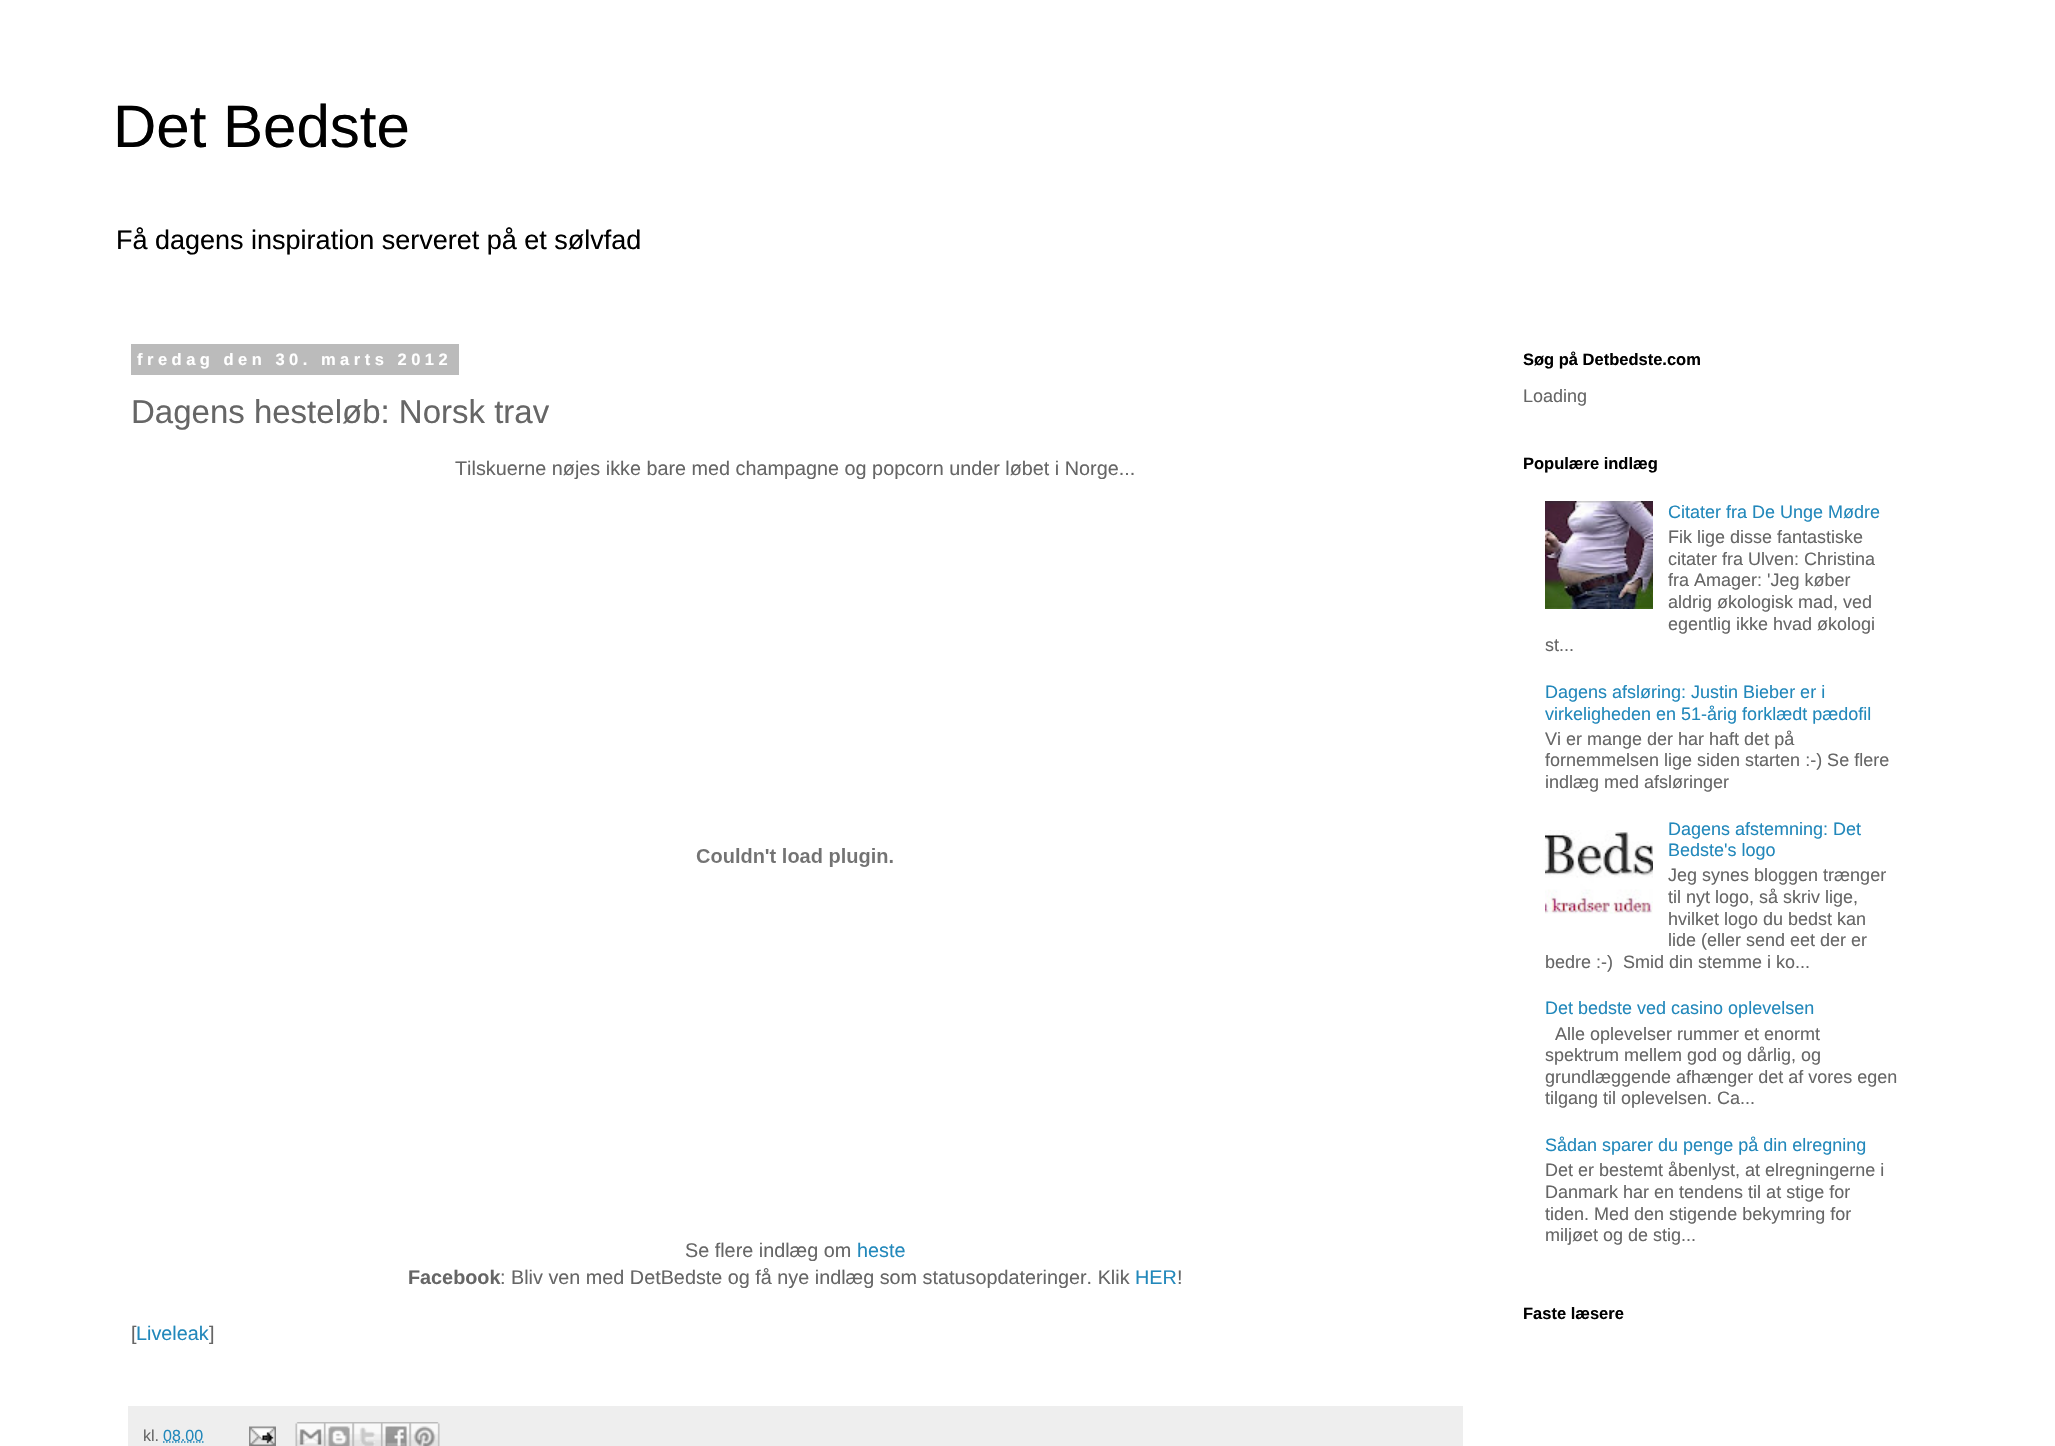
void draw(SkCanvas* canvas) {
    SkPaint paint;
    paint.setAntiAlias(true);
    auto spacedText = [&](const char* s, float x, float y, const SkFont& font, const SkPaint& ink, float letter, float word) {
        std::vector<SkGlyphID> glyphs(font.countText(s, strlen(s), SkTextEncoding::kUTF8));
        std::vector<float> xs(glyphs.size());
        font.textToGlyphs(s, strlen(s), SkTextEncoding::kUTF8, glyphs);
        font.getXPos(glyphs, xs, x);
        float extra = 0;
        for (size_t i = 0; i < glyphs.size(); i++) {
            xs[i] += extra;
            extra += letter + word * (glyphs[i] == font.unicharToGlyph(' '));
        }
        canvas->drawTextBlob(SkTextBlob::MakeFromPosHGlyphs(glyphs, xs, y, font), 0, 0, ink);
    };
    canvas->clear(0xFFFFFFFF);
    SkFont font1(fontMgr->matchFamilyStyle("Liberation Sans", SkFontStyle::Normal()), 60);
    font1.setSubpixel(true);
    paint.setColor(0xFF000000);
    canvas->drawString("Det Bedste", 113, 147, font1, paint);
    SkFont font2(fontMgr->matchFamilyStyle("Liberation Sans", SkFontStyle::Normal()), 27);
    font2.setSubpixel(true);
    canvas->drawString("Få dagens inspiration serveret på et sølvfad", 116, 249, font2, paint);
    paint.setColor(0xFFBBBBBB);
    canvas->drawRect(SkRect::MakeXYWH(131, 344, 328, 31), paint);
    SkFont font3(fontMgr->matchFamilyStyle("Liberation Sans", SkFontStyle::Bold()), 16.5f);
    font3.setSubpixel(true);
    paint.setColor(0xFFFFFFFF);
    spacedText("fredag den 30. marts 2012", 137, 365, font3, paint, 4.5f, 0);
    SkFont font4(fontMgr->matchFamilyStyle("Liberation Sans", SkFontStyle::Normal()), 33);
    font4.setSubpixel(true);
    paint.setColor(0xFF666666);
    canvas->drawString("Dagens hesteløb: Norsk trav", 131, 423, font4, paint);
    SkFont font5(fontMgr->matchFamilyStyle("Liberation Sans", SkFontStyle::Normal()), 19.8f);
    font5.setSubpixel(true);
    canvas->drawString("Tilskuerne nøjes ikke bare med champagne og popcorn under løbet i Norge...", 455, 475, font5, paint);
    canvas->drawImageRect(SkImages::DeferredFromEncodedData(SkData::MakeFromFileName("img1.png")), SkRect::MakeXYWH(696, 848, 197, 19), SkSamplingOptions());
    canvas->drawString("Se flere indlæg om", 685, 1257, font5, paint);
    paint.setColor(0xFF2288BB);
    canvas->drawString("heste", 857, 1257, font5, paint);
    SkFont font6(fontMgr->matchFamilyStyle("Liberation Sans", SkFontStyle::Bold()), 19.8f);
    font6.setSubpixel(true);
    paint.setColor(0xFF666666);
    canvas->drawString("Facebook", 408, 1284, font6, paint);
    canvas->drawString(": Bliv ven med DetBedste og få nye indlæg som statusopdateringer. Klik", 500, 1284, font5, paint);
    paint.setColor(0xFF2288BB);
    canvas->drawString("HER", 1135, 1284, font5, paint);
    paint.setColor(0xFF666666);
    canvas->drawString("!", 1177, 1284, font5, paint);
    canvas->drawString("[", 131, 1340, font5, paint);
    paint.setColor(0xFF2288BB);
    canvas->drawString("Liveleak", 136, 1340, font5, paint);
    paint.setColor(0xFF666666);
    canvas->drawString("]", 209, 1340, font5, paint);
    paint.setColor(0xFFEEEEEE);
    canvas->drawRect(SkRect::MakeXYWH(128, 1406, 1335, 40), paint);
    SkFont font7(fontMgr->matchFamilyStyle("Liberation Sans", SkFontStyle::Normal()), 16);
    font7.setSubpixel(true);
    paint.setColor(0xFF666666);
    canvas->drawString("kl.", 143, 1441, font7, paint);
    paint.setStyle(SkPaint::kStroke_Style);
    paint.setStrokeWidth(1.5f);
    paint.setColor(0xFF2288BB);
    paint.setPathEffect(SkDashPathEffect::Make({{1.5f, 1.5f}}, 0));
    canvas->drawPath(SkPathBuilder().moveTo(163, 1442).lineTo(203.5f, 1442).detach(), paint);
    paint.setPathEffect(nullptr);
    paint.setStyle(SkPaint::kFill_Style);
    canvas->drawString("08.00", 163, 1441, font7, paint);
    canvas->drawImageRect(SkImages::DeferredFromEncodedData(SkData::MakeFromFileName("img2.png")), SkRect::MakeXYWH(249, 1426, 27, 20), SkSamplingOptions());
    canvas->drawImageRect(SkImages::DeferredFromEncodedData(SkData::MakeFromFileName("img3.png")), SkRect::MakeXYWH(295, 1422, 29, 24), SkSamplingOptions());
    canvas->drawImageRect(SkImages::DeferredFromEncodedData(SkData::MakeFromFileName("img4.png")), SkRect::MakeXYWH(324, 1422, 29, 24), SkSamplingOptions());
    canvas->drawImageRect(SkImages::DeferredFromEncodedData(SkData::MakeFromFileName("img5.png")), SkRect::MakeXYWH(352, 1422, 29, 24), SkSamplingOptions());
    canvas->drawImageRect(SkImages::DeferredFromEncodedData(SkData::MakeFromFileName("img6.png")), SkRect::MakeXYWH(381, 1422, 29, 24), SkSamplingOptions());
    canvas->drawImageRect(SkImages::DeferredFromEncodedData(SkData::MakeFromFileName("img7.png")), SkRect::MakeXYWH(409, 1422, 31, 24), SkSamplingOptions());
    paint.setColor(0xFF000000);
    canvas->drawString("Søg på Detbedste.com", 1523, 365, font3, paint);
    SkFont font8(fontMgr->matchFamilyStyle("Liberation Sans", SkFontStyle::Normal()), 18);
    font8.setSubpixel(true);
    paint.setColor(0xFF666666);
    canvas->drawString("Loading", 1523, 402, font8, paint);
    paint.setColor(0xFF000000);
    canvas->drawString("Populære indlæg", 1523, 469, font3, paint);
    canvas->drawImageRect(SkImages::DeferredFromEncodedData(SkData::MakeFromFileName("img8.png")), SkRect::MakeXYWH(1545, 501, 108, 108), SkSamplingOptions());
    paint.setColor(0xFF2288BB);
    canvas->drawString("Citater fra De Unge Mødre", 1668, 518, font8, paint);
    paint.setColor(0xFF666666);
    canvas->drawString("Fik lige disse fantastiske", 1668, 543, font8, paint);
    canvas->drawString("citater fra Ulven: Christina", 1668, 565, font8, paint);
    canvas->drawString("fra Amager: 'Jeg køber", 1668, 586, font8, paint);
    canvas->drawString("aldrig økologisk mad, ved", 1668, 608, font8, paint);
    canvas->drawString("egentlig ikke hvad økologi", 1668, 630, font8, paint);
    canvas->drawString("st...", 1545, 651, font8, paint);
    paint.setColor(0xFF2288BB);
    canvas->drawString("Dagens afsløring: Justin Bieber er i", 1545, 698, font8, paint);
    canvas->drawString("virkeligheden en 51-årig forklædt pædofil", 1545, 720, font8, paint);
    paint.setColor(0xFF666666);
    canvas->drawString("Vi er mange der har haft det på", 1545, 745, font8, paint);
    canvas->drawString("fornemmelsen lige siden starten :-) Se flere", 1545, 766, font8, paint);
    canvas->drawString("indlæg med afsløringer", 1545, 788, font8, paint);
    canvas->drawImageRect(SkImages::DeferredFromEncodedData(SkData::MakeFromFileName("img9.png")), SkRect::MakeXYWH(1545, 830, 108, 84), SkSamplingOptions());
    paint.setColor(0xFF2288BB);
    canvas->drawString("Dagens afstemning: Det", 1668, 835, font8, paint);
    canvas->drawString("Bedste's logo", 1668, 856, font8, paint);
    paint.setColor(0xFF666666);
    canvas->drawString("Jeg synes bloggen trænger", 1668, 881, font8, paint);
    canvas->drawString("til nyt logo, så skriv lige,", 1668, 903, font8, paint);
    canvas->drawString("hvilket logo du bedst kan", 1668, 925, font8, paint);
    canvas->drawString("lide (eller send eet der er", 1668, 946, font8, paint);
    canvas->drawString("bedre :-)  Smid din stemme i ko...", 1545, 968, font8, paint);
    paint.setColor(0xFF2288BB);
    canvas->drawString("Det bedste ved casino oplevelsen", 1545, 1014, font8, paint);
    paint.setColor(0xFF666666);
    canvas->drawString("Alle oplevelser rummer et enormt", 1555, 1040, font8, paint);
    canvas->drawString("spektrum mellem god og dårlig, og", 1545, 1061, font8, paint);
    canvas->drawString("grundlæggende afhænger det af vores egen", 1545, 1083, font8, paint);
    canvas->drawString("tilgang til oplevelsen. Ca...", 1545, 1104, font8, paint);
    paint.setColor(0xFF2288BB);
    canvas->drawString("Sådan sparer du penge på din elregning", 1545, 1151, font8, paint);
    paint.setColor(0xFF666666);
    canvas->drawString("Det er bestemt åbenlyst, at elregningerne i", 1545, 1176, font8, paint);
    canvas->drawString("Danmark har en tendens til at stige for", 1545, 1198, font8, paint);
    canvas->drawString("tiden. Med den stigende bekymring for", 1545, 1220, font8, paint);
    canvas->drawString("miljøet og de stig...", 1545, 1241, font8, paint);
    paint.setColor(0xFF000000);
    canvas->drawString("Faste læsere", 1523, 1319, font3, paint);
}
